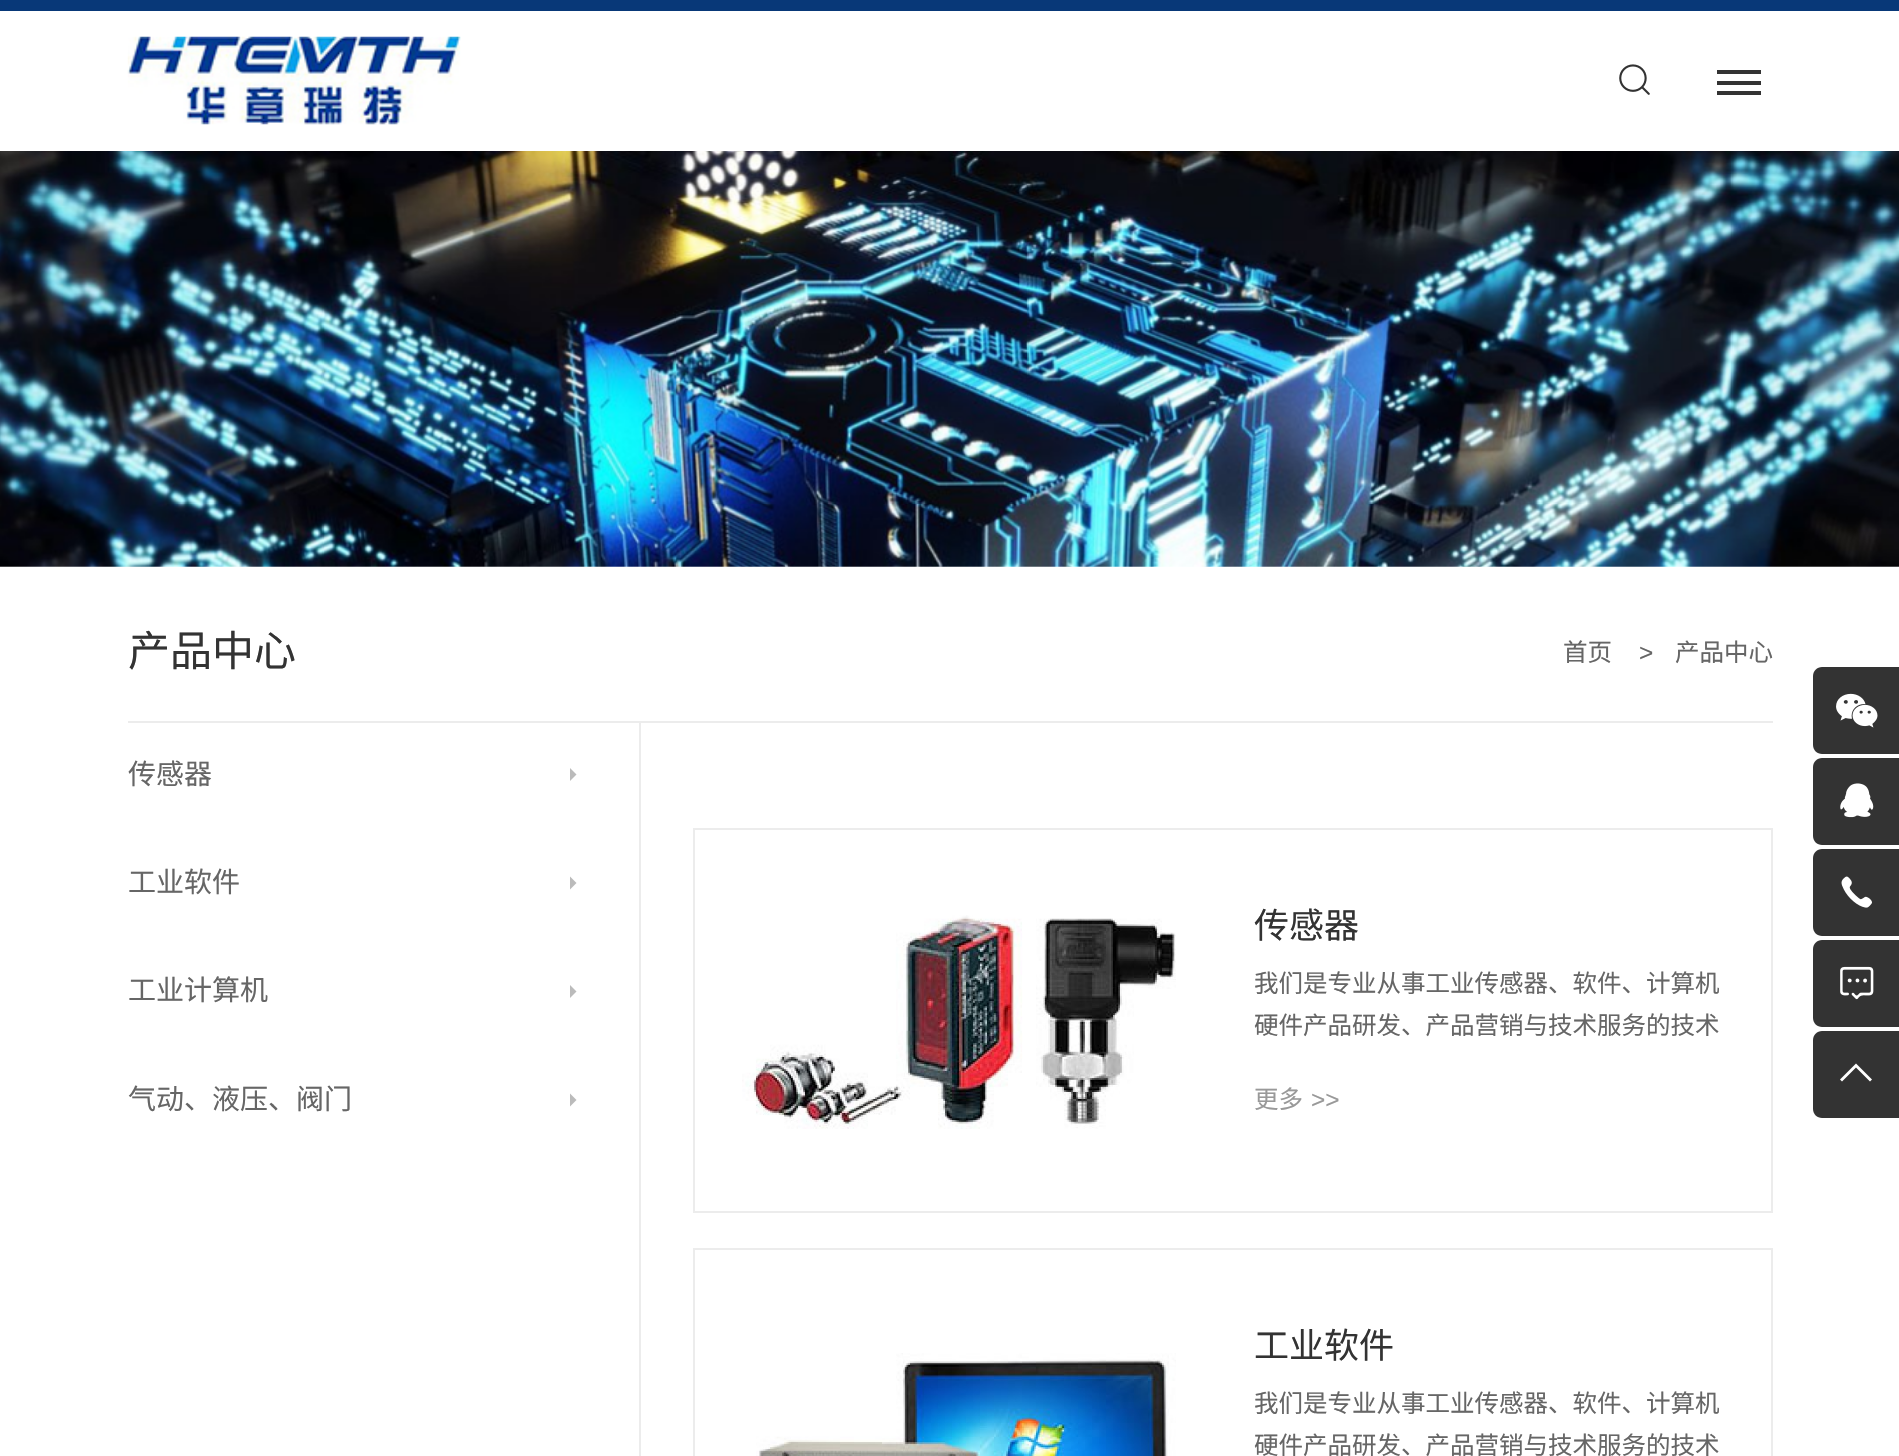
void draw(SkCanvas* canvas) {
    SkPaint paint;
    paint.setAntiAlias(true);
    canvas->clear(0xFFFFFFFF);
    paint.setColor(0xFF083878);
    canvas->drawRect(SkRect::MakeXYWH(0, 0, 1899, 11), paint);
    canvas->drawImageRect(SkImages::DeferredFromEncodedData(SkData::MakeFromFileName("img1.png")), SkRect::MakeXYWH(127, 36, 334, 89), SkSamplingOptions());
    canvas->drawImageRect(SkImages::DeferredFromEncodedData(SkData::MakeFromFileName("img2.png")), SkRect::MakeXYWH(1619, 64, 31, 31), SkSamplingOptions());
    paint.setColor(0xFF333333);
    canvas->drawRect(SkRect::MakeXYWH(1717, 70, 44, 4), paint);
    canvas->drawRect(SkRect::MakeXYWH(1717, 81, 44, 4), paint);
    canvas->drawRect(SkRect::MakeXYWH(1717, 91, 44, 4), paint);
    canvas->drawImageRect(SkImages::DeferredFromEncodedData(SkData::MakeFromFileName("img3.png")), SkRect::MakeXYWH(0, 151, 1899, 416), SkSamplingOptions());
    paint.setColor(0xFFECECEC);
    canvas->drawRect(SkRect::MakeXYWH(128, 721, 1645, 2), paint);
    SkFont font1(fontMgr->matchFamilyStyle("Noto Sans CJK SC", SkFontStyle::Normal()), 42);
    font1.setSubpixel(true);
    paint.setColor(0xFF333333);
    canvas->drawString("产品中心", 128, 666, font1, paint);
    SkFont font2(fontMgr->matchFamilyStyle("Noto Sans CJK SC", SkFontStyle::Normal()), 24.5f);
    font2.setSubpixel(true);
    paint.setColor(0xFF666666);
    canvas->drawString("首页", 1563, 661, font2, paint);
    SkFont font3(fontMgr->matchFamilyStyle("Liberation Sans", SkFontStyle::Normal()), 24.5f);
    font3.setSubpixel(true);
    canvas->drawString(">", 1639, 661, font3, paint);
    canvas->drawString("产品中心", 1675, 661, font2, paint);
    paint.setColor(0xFFECECEC);
    canvas->drawRect(SkRect::MakeXYWH(639, 723, 2, 733), paint);
    SkFont font4(fontMgr->matchFamilyStyle("Noto Sans CJK SC", SkFontStyle::Normal()), 28);
    font4.setSubpixel(true);
    paint.setColor(0xFF666666);
    canvas->drawString("传感器", 128, 784, font4, paint);
    paint.setColor(0xFFBBBBBB);
    canvas->drawPath(SkPathBuilder().moveTo(570, 768).lineTo(576.5f, 774.5f).lineTo(570, 781).close().detach(), paint);
    paint.setColor(0xFF666666);
    canvas->drawString("工业软件", 128, 892, font4, paint);
    paint.setColor(0xFFBBBBBB);
    canvas->drawPath(SkPathBuilder().moveTo(570, 876.5f).lineTo(576.5f, 883).lineTo(570, 889.5f).close().detach(), paint);
    paint.setColor(0xFF666666);
    canvas->drawString("工业计算机", 128, 1000, font4, paint);
    paint.setColor(0xFFBBBBBB);
    canvas->drawPath(SkPathBuilder().moveTo(570, 985).lineTo(576.5f, 991.5f).lineTo(570, 998).close().detach(), paint);
    paint.setColor(0xFF666666);
    canvas->drawString("气动、液压、阀门", 128, 1109, font4, paint);
    paint.setColor(0xFFBBBBBB);
    canvas->drawPath(SkPathBuilder().moveTo(570, 1093.5f).lineTo(576.5f, 1100).lineTo(570, 1106.5f).close().detach(), paint);
    paint.setStyle(SkPaint::kStroke_Style);
    paint.setStrokeWidth(2);
    paint.setColor(0xFFECECEC);
    canvas->drawRect(SkRect::MakeXYWH(694, 829, 1078, 383), paint);
    canvas->drawImageRect(SkImages::DeferredFromEncodedData(SkData::MakeFromFileName("img4.png")), SkRect::MakeXYWH(742, 915, 434, 214), SkSamplingOptions());
    canvas->drawImageRect(SkImages::DeferredFromEncodedData(SkData::MakeFromFileName("img5.png")), SkRect::MakeXYWH(758, 920, 416, 202), SkSamplingOptions());
    SkFont font5(fontMgr->matchFamilyStyle("Noto Sans CJK SC", SkFontStyle::Normal()), 35);
    font5.setSubpixel(true);
    paint.setStyle(SkPaint::kFill_Style);
    paint.setColor(0xFF333333);
    canvas->drawString("传感器", 1254, 938, font5, paint);
    paint.setColor(0xFF666666);
    canvas->drawString("我们是专业从事工业传感器、软件、计算机", 1254, 992, font2, paint);
    canvas->drawString("硬件产品研发、产品营销与技术服务的技术", 1254, 1034, font2, paint);
    paint.setColor(0xFF999999);
    canvas->drawString("更多", 1254, 1108, font2, paint);
    canvas->drawString(">>", 1311, 1108, font3, paint);
    paint.setStyle(SkPaint::kStroke_Style);
    paint.setColor(0xFFECECEC);
    canvas->drawRect(SkRect::MakeXYWH(694, 1249, 1078, 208), paint);
    paint.setStyle(SkPaint::kFill_Style);
    paint.setColor(0xFF333333);
    canvas->drawString("工业软件", 1254, 1358, font5, paint);
    canvas->drawImageRect(SkImages::DeferredFromEncodedData(SkData::MakeFromFileName("img6.png")), SkRect::MakeXYWH(756, 1353, 420, 103), SkSamplingOptions());
    paint.setColor(0xFFDCDBDC);
    canvas->drawRect(SkRect::MakeXYWH(759, 1453, 1, 3), paint);
    paint.setColor(0xFF666666);
    canvas->drawString("我们是专业从事工业传感器、软件、计算机", 1254, 1412, font2, paint);
    canvas->drawString("硬件产品研发、产品营销与技术服务的技术", 1254, 1454, font2, paint);
    paint.setColor(0xFF333333);
    canvas->drawPath(SkPathBuilder().moveTo(1822, 667).lineTo(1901, 667).lineTo(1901, 754).lineTo(1822, 754).cubicTo(1817, 754, 1813, 750, 1813, 745).lineTo(1813, 676).cubicTo(1813, 671, 1817, 667, 1822, 667).close().detach(), paint);
    canvas->drawImageRect(SkImages::DeferredFromEncodedData(SkData::MakeFromFileName("img7.png")), SkRect::MakeXYWH(1836, 693, 42, 35), SkSamplingOptions());
    canvas->drawPath(SkPathBuilder().moveTo(1822, 758).lineTo(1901, 758).lineTo(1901, 845).lineTo(1822, 845).cubicTo(1817, 845, 1813, 841, 1813, 836).lineTo(1813, 767).cubicTo(1813, 762, 1817, 758, 1822, 758).close().detach(), paint);
    canvas->drawImageRect(SkImages::DeferredFromEncodedData(SkData::MakeFromFileName("img8.png")), SkRect::MakeXYWH(1840, 783, 34, 35), SkSamplingOptions());
    canvas->drawPath(SkPathBuilder().moveTo(1822, 849).lineTo(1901, 849).lineTo(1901, 936).lineTo(1822, 936).cubicTo(1817, 936, 1813, 932, 1813, 927).lineTo(1813, 858).cubicTo(1813, 853, 1817, 849, 1822, 849).close().detach(), paint);
    canvas->drawImageRect(SkImages::DeferredFromEncodedData(SkData::MakeFromFileName("img9.png")), SkRect::MakeXYWH(1841, 876, 31, 32), SkSamplingOptions());
    canvas->drawPath(SkPathBuilder().moveTo(1822, 940).lineTo(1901, 940).lineTo(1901, 1027).lineTo(1822, 1027).cubicTo(1817, 1027, 1813, 1023, 1813, 1018).lineTo(1813, 949).cubicTo(1813, 944, 1817, 940, 1822, 940).close().detach(), paint);
    canvas->drawImageRect(SkImages::DeferredFromEncodedData(SkData::MakeFromFileName("img10.png")), SkRect::MakeXYWH(1840, 966, 34, 34), SkSamplingOptions());
    canvas->drawPath(SkPathBuilder().moveTo(1822, 1031).lineTo(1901, 1031).lineTo(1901, 1118).lineTo(1822, 1118).cubicTo(1817, 1118, 1813, 1114, 1813, 1109).lineTo(1813, 1040).cubicTo(1813, 1035, 1817, 1031, 1822, 1031).close().detach(), paint);
    paint.setColor(0xFFFFFFFF);
    canvas->drawPath(SkPathBuilder().moveTo(1856, 1063.5f).lineTo(1840, 1079.5f).lineTo(1842, 1081.5f).lineTo(1856, 1067.5f).lineTo(1870, 1081.5f).lineTo(1872, 1079.5f).close().detach(), paint);
}
